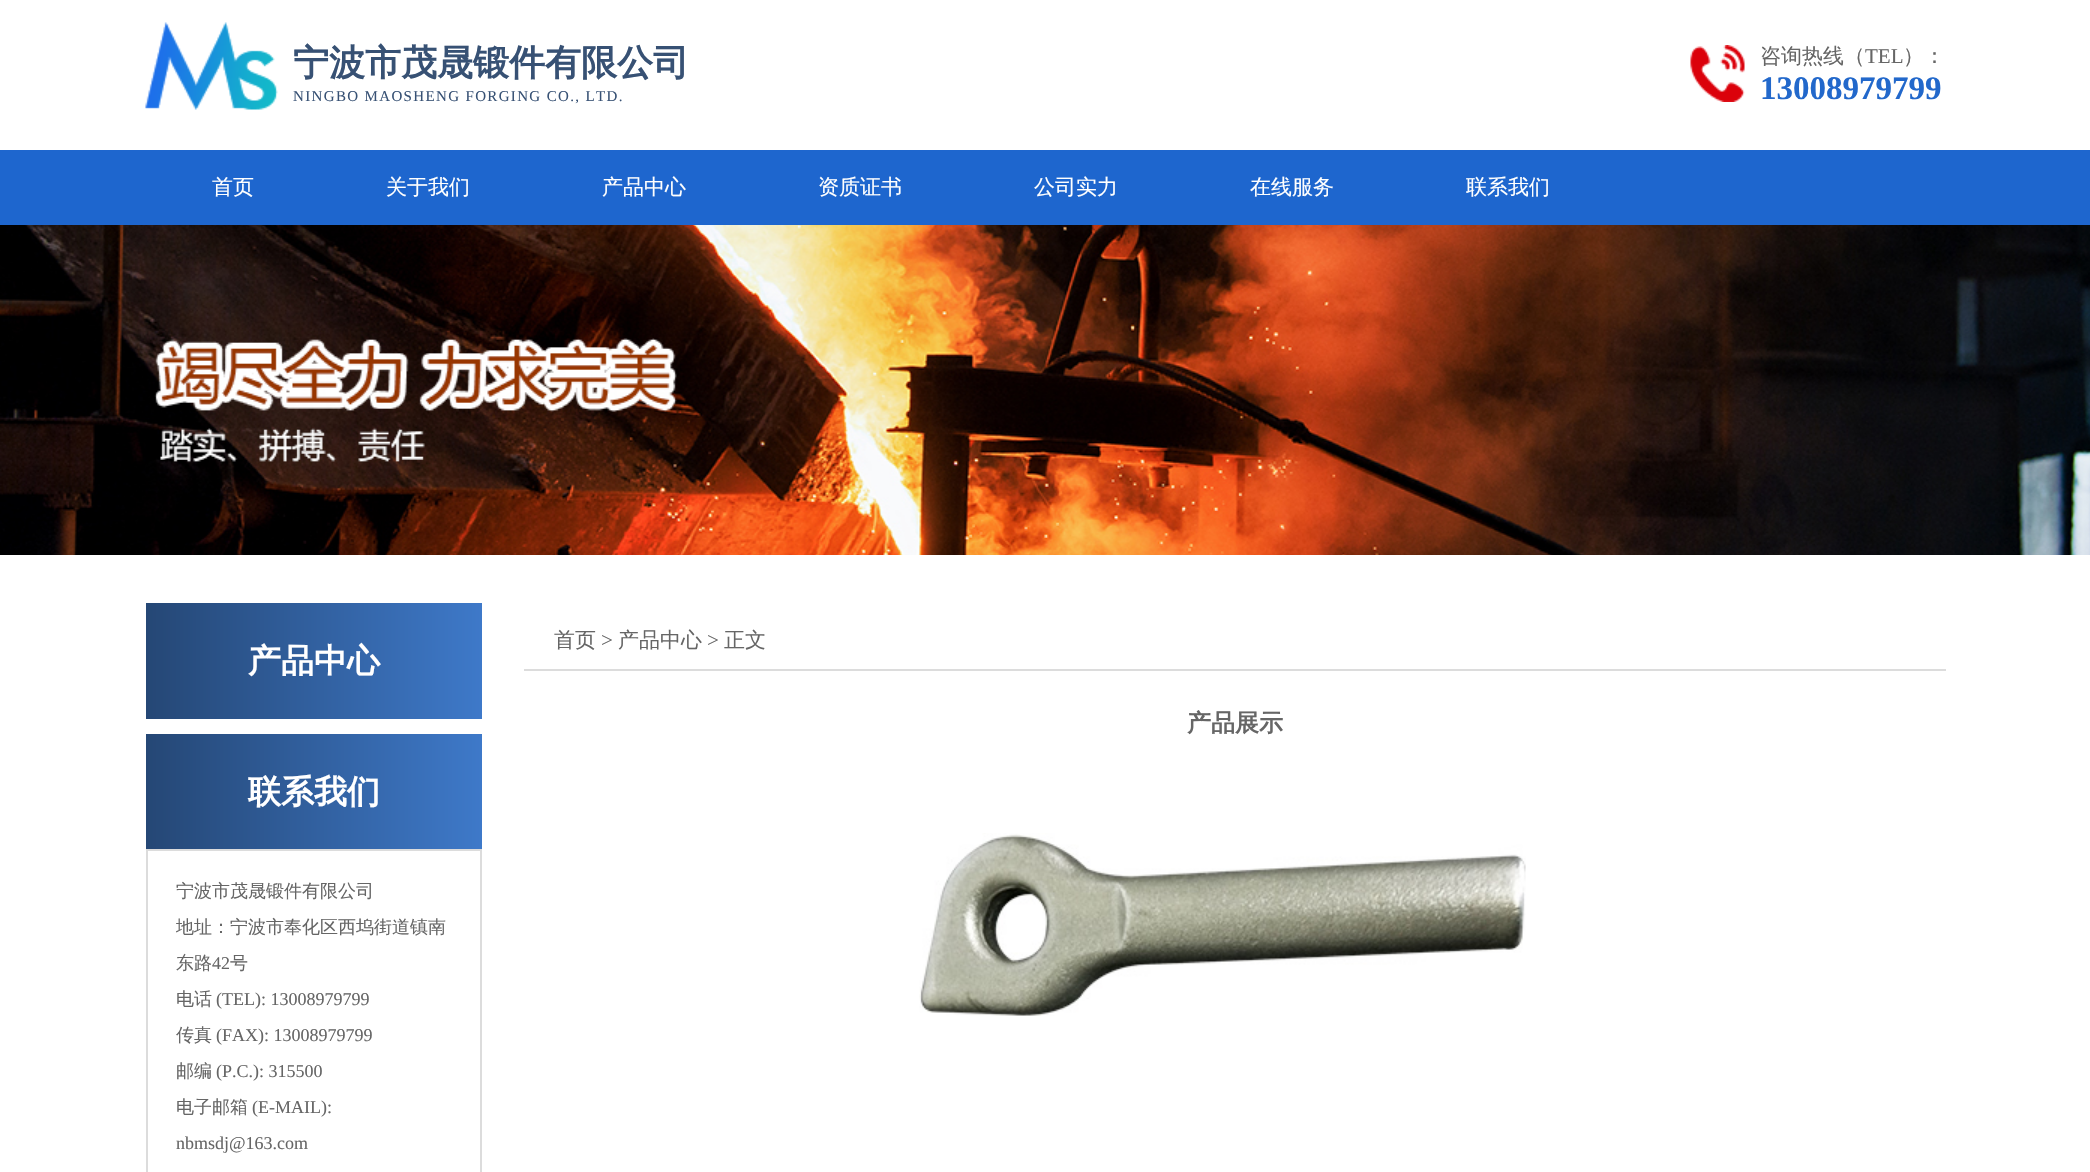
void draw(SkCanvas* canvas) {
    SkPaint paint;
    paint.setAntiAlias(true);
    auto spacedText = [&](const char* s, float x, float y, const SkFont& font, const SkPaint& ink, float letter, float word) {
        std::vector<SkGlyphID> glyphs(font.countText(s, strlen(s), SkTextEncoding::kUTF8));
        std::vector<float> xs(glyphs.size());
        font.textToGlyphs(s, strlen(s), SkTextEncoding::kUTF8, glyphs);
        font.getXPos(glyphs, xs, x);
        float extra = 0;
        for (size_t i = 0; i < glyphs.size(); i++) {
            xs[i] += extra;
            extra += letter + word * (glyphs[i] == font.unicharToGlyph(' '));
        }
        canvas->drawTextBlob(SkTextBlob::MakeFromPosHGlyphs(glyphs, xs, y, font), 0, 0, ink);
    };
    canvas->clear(0xFFFFFFFF);
    canvas->drawImageRect(SkImages::DeferredFromEncodedData(SkData::MakeFromFileName("img1.png")), SkRect::MakeXYWH(145, 22, 133, 88), SkSamplingOptions());
    SkFont font1(fontMgr->matchFamilyStyle("WenQuanYi Zen Hei", SkFontStyle::Bold()), 36);
    font1.setSubpixel(true);
    paint.setColor(0xFF375174);
    canvas->drawString("宁波市茂晟锻件有限公司", 293, 75, font1, paint);
    SkFont font2(fontMgr->matchFamilyStyle("Liberation Serif", SkFontStyle::Normal()), 15);
    font2.setSubpixel(true);
    spacedText("NINGBO MAOSHENG FORGING CO., LTD.", 293, 101, font2, paint, 1.35f, 0);
    canvas->drawImageRect(SkImages::DeferredFromEncodedData(SkData::MakeFromFileName("img2.png")), SkRect::MakeXYWH(1690, 45, 55, 57), SkSamplingOptions());
    SkFont font3(fontMgr->matchFamilyStyle("WenQuanYi Zen Hei", SkFontStyle(500, SkFontStyle::kNormal_Width, SkFontStyle::kUpright_Slant)), 21);
    font3.setSubpixel(true);
    paint.setColor(0xFF666666);
    canvas->drawString("咨询热线（", 1760, 63, font3, paint);
    SkFont font4(fontMgr->matchFamilyStyle("Liberation Serif", SkFontStyle::Normal()), 21);
    font4.setSubpixel(true);
    canvas->drawString("TEL", 1865, 63, font4, paint);
    canvas->drawString("）：", 1903, 63, font3, paint);
    SkFont font5(fontMgr->matchFamilyStyle("Liberation Serif", SkFontStyle::Bold()), 33);
    font5.setSubpixel(true);
    paint.setColor(0xFF2268CB);
    canvas->drawString("13008979799", 1760, 99, font5, paint);
    paint.setColor(0xFF1E66CE);
    canvas->drawRect(SkRect::MakeXYWH(0, 150, 2090, 75), paint);
    paint.setColor(0xFFFFFFFF);
    canvas->drawString("首页", 212, 194, font3, paint);
    canvas->drawString("关于我们", 386, 194, font3, paint);
    canvas->drawString("产品中心", 602, 194, font3, paint);
    canvas->drawString("资质证书", 818, 194, font3, paint);
    canvas->drawString("公司实力", 1034, 194, font3, paint);
    canvas->drawString("在线服务", 1250, 194, font3, paint);
    canvas->drawString("联系我们", 1466, 194, font3, paint);
    canvas->drawImageRect(SkImages::DeferredFromEncodedData(SkData::MakeFromFileName("img3.png")), SkRect::MakeXYWH(0, 225, 2090, 330), SkSamplingOptions());
    paint.setColor(0xFFDCDCDC);
    canvas->drawRect(SkRect::MakeXYWH(524, 669, 1422, 2), paint);
    paint.setColor(0xFF666666);
    canvas->drawString("首页", 554, 647, font3, paint);
    canvas->drawString(">", 601, 647, font4, paint);
    canvas->drawString("产品中心", 618, 647, font3, paint);
    canvas->drawString(">", 707, 647, font4, paint);
    canvas->drawString("正文", 724, 647, font3, paint);
    {
        const SkColor colors[] = {0xFF254775, 0xFF3E79C9};
        const float stops[] = {0, 1};
        const SkPoint ends[] = {{146, 661}, {482, 661}};
        paint.setShader(SkGradientShader::MakeLinear(ends, colors, stops, 2, SkTileMode::kClamp));
        paint.setAlpha(255);
    }
    canvas->drawRect(SkRect::MakeXYWH(146, 603, 336, 116), paint);
    SkFont font6(fontMgr->matchFamilyStyle("WenQuanYi Zen Hei", SkFontStyle::Bold()), 33);
    font6.setSubpixel(true);
    paint.setShader(nullptr);
    paint.setColor(0xFFFFFFFF);
    canvas->drawString("产品中心", 248, 672, font6, paint);
    {
        const SkColor colors[] = {0xFF254775, 0xFF3E79C9};
        const float stops[] = {0, 1};
        const SkPoint ends[] = {{146, 791}, {482, 791}};
        paint.setShader(SkGradientShader::MakeLinear(ends, colors, stops, 2, SkTileMode::kClamp));
        paint.setAlpha(255);
    }
    canvas->drawRect(SkRect::MakeXYWH(146, 734, 336, 115), paint);
    paint.setShader(nullptr);
    paint.setColor(0xFFFFFFFF);
    canvas->drawString("联系我们", 248, 803, font6, paint);
    paint.setStyle(SkPaint::kStroke_Style);
    paint.setStrokeWidth(2);
    paint.setColor(0xFFDCDCDC);
    canvas->drawRect(SkRect::MakeXYWH(147, 850, 334, 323), paint);
    SkFont font7(fontMgr->matchFamilyStyle("WenQuanYi Zen Hei", SkFontStyle(500, SkFontStyle::kNormal_Width, SkFontStyle::kUpright_Slant)), 18);
    font7.setSubpixel(true);
    paint.setStyle(SkPaint::kFill_Style);
    paint.setColor(0xFF666666);
    canvas->drawString("宁波市茂晟锻件有限公司", 176, 897, font7, paint);
    canvas->drawString("地址：宁波市奉化区西坞街道镇南", 176, 933, font7, paint);
    canvas->drawString("东路", 176, 969, font7, paint);
    SkFont font8(fontMgr->matchFamilyStyle("Liberation Serif", SkFontStyle::Normal()), 18);
    font8.setSubpixel(true);
    canvas->drawString("42", 212, 969, font8, paint);
    canvas->drawString("号", 230, 969, font7, paint);
    canvas->drawString("电话", 176, 1005, font7, paint);
    canvas->drawString("(TEL): 13008979799", 216, 1005, font8, paint);
    canvas->drawString("传真", 176, 1041, font7, paint);
    canvas->drawString("(FAX): 13008979799", 216, 1041, font8, paint);
    canvas->drawString("邮编", 176, 1077, font7, paint);
    canvas->drawString("(P.C.): 315500", 216, 1077, font8, paint);
    canvas->drawString("电子邮箱", 176, 1113, font7, paint);
    canvas->drawString("(E-MAIL):", 252, 1113, font8, paint);
    canvas->drawString("nbmsdj@163.com", 176, 1149, font8, paint);
    SkFont font9(fontMgr->matchFamilyStyle("WenQuanYi Zen Hei", SkFontStyle::Bold()), 24);
    font9.setSubpixel(true);
    canvas->drawString("产品展示", 1187, 731, font9, paint);
    canvas->drawImageRect(SkImages::DeferredFromEncodedData(SkData::MakeFromFileName("img4.png")), SkRect::MakeXYWH(919, 833, 607, 183), SkSamplingOptions());
}
